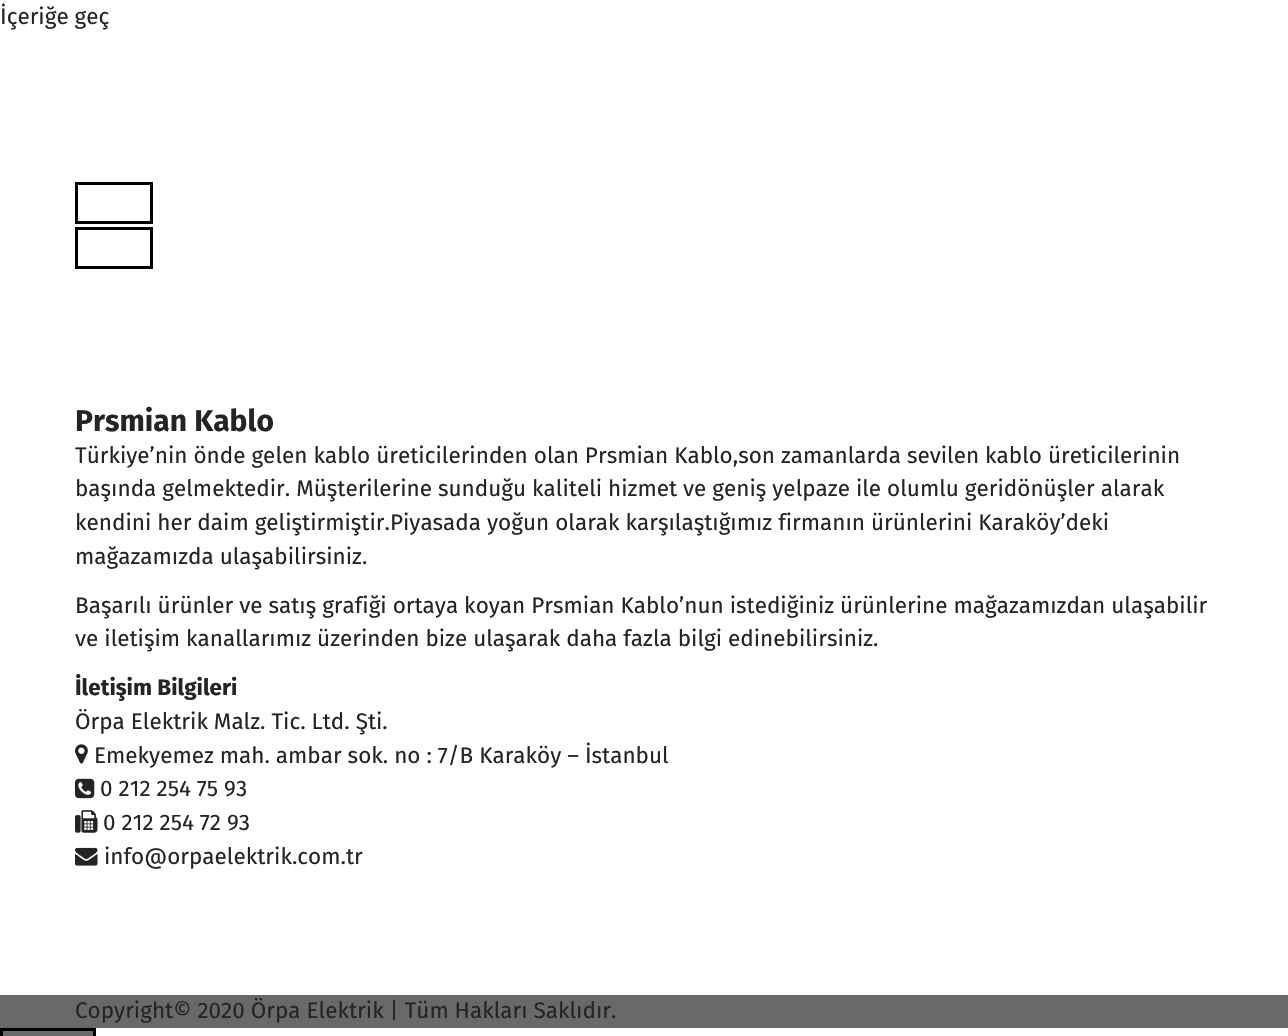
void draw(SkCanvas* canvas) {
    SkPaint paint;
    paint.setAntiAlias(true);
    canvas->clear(0xFFFFFFFF);
    SkFont font1(fontMgr->matchFamilyStyle("Fira Sans", SkFontStyle::Normal()), 22.5f);
    font1.setSubpixel(true);
    paint.setColor(0xFF242424);
    canvas->drawString("İçeriğe geç", 0, 24, font1, paint);
    paint.setStyle(SkPaint::kStroke_Style);
    paint.setStrokeWidth(3);
    paint.setColor(0xFF000000);
    canvas->drawRect(SkRect::MakeXYWH(76.5f, 183.5f, 75, 39), paint);
    canvas->drawRect(SkRect::MakeXYWH(76.5f, 228.5f, 75, 39), paint);
    SkFont font2(fontMgr->matchFamilyStyle("Fira Sans", SkFontStyle::Bold()), 30);
    font2.setSubpixel(true);
    paint.setStyle(SkPaint::kFill_Style);
    paint.setColor(0xFF242424);
    canvas->drawString("Prsmian Kablo", 75, 431, font2, paint);
    canvas->drawString("Türkiye’nin önde gelen kablo üreticilerinden olan Prsmian Kablo,son zamanlarda sevilen kablo üreticilerinin", 75, 463, font1, paint);
    canvas->drawString("başında gelmektedir. Müşterilerine sunduğu kaliteli hizmet ve geniş yelpaze ile olumlu geridönüşler alarak", 75, 496, font1, paint);
    canvas->drawString("kendini her daim geliştirmiştir.Piyasada yoğun olarak karşılaştığımız firmanın ürünlerini Karaköy’deki", 75, 530, font1, paint);
    canvas->drawString("mağazamızda ulaşabilirsiniz.", 75, 564, font1, paint);
    canvas->drawString("Başarılı ürünler ve satış grafiği ortaya koyan Prsmian Kablo’nun istediğiniz ürünlerine mağazamızdan ulaşabilir", 75, 613, font1, paint);
    canvas->drawString("ve iletişim kanallarımız üzerinden bize ulaşarak daha fazla bilgi edinebilirsiniz.", 75, 646, font1, paint);
    SkFont font3(fontMgr->matchFamilyStyle("Fira Sans", SkFontStyle::Bold()), 22.5f);
    font3.setSubpixel(true);
    canvas->drawString("İletişim Bilgileri", 75, 695, font3, paint);
    canvas->drawString("Örpa Elektrik Malz. Tic. Ltd. Şti.", 75, 729, font1, paint);
    canvas->drawImageRect(SkImages::DeferredFromEncodedData(SkData::MakeFromFileName("img1.png")), SkRect::MakeXYWH(75, 744, 13, 20), SkSamplingOptions());
    canvas->drawString("Emekyemez mah. ambar sok. no : 7/B Karaköy – İstanbul", 94, 763, font1, paint);
    canvas->drawImageRect(SkImages::DeferredFromEncodedData(SkData::MakeFromFileName("img2.png")), SkRect::MakeXYWH(75, 778, 20, 21), SkSamplingOptions());
    canvas->drawString("0 212 254 75 93", 100, 796, font1, paint);
    canvas->drawImageRect(SkImages::DeferredFromEncodedData(SkData::MakeFromFileName("img3.png")), SkRect::MakeXYWH(75, 810, 23, 23), SkSamplingOptions());
    canvas->drawString("0 212 254 72 93", 103, 830, font1, paint);
    canvas->drawImageRect(SkImages::DeferredFromEncodedData(SkData::MakeFromFileName("img4.png")), SkRect::MakeXYWH(75, 847, 23, 19), SkSamplingOptions());
    canvas->drawString("info@orpaelektrik.com.tr", 104, 864, font1, paint);
    paint.setColor(0xFF696969);
    canvas->drawRect(SkRect::MakeXYWH(0, 995, 1288, 33), paint);
    paint.setColor(0xFF242424);
    canvas->drawString("Copyright© 2020 Örpa Elektrik | Tüm Hakları Saklıdır.", 75, 1018, font1, paint);
    paint.setColor(0xFF696969);
    canvas->drawRect(SkRect::MakeXYWH(1.5f, 1029.5f, 93, 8), paint);
    paint.setStyle(SkPaint::kStroke_Style);
    paint.setColor(0xFF000000);
    canvas->drawRect(SkRect::MakeXYWH(1.5f, 1029.5f, 93, 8), paint);
}
